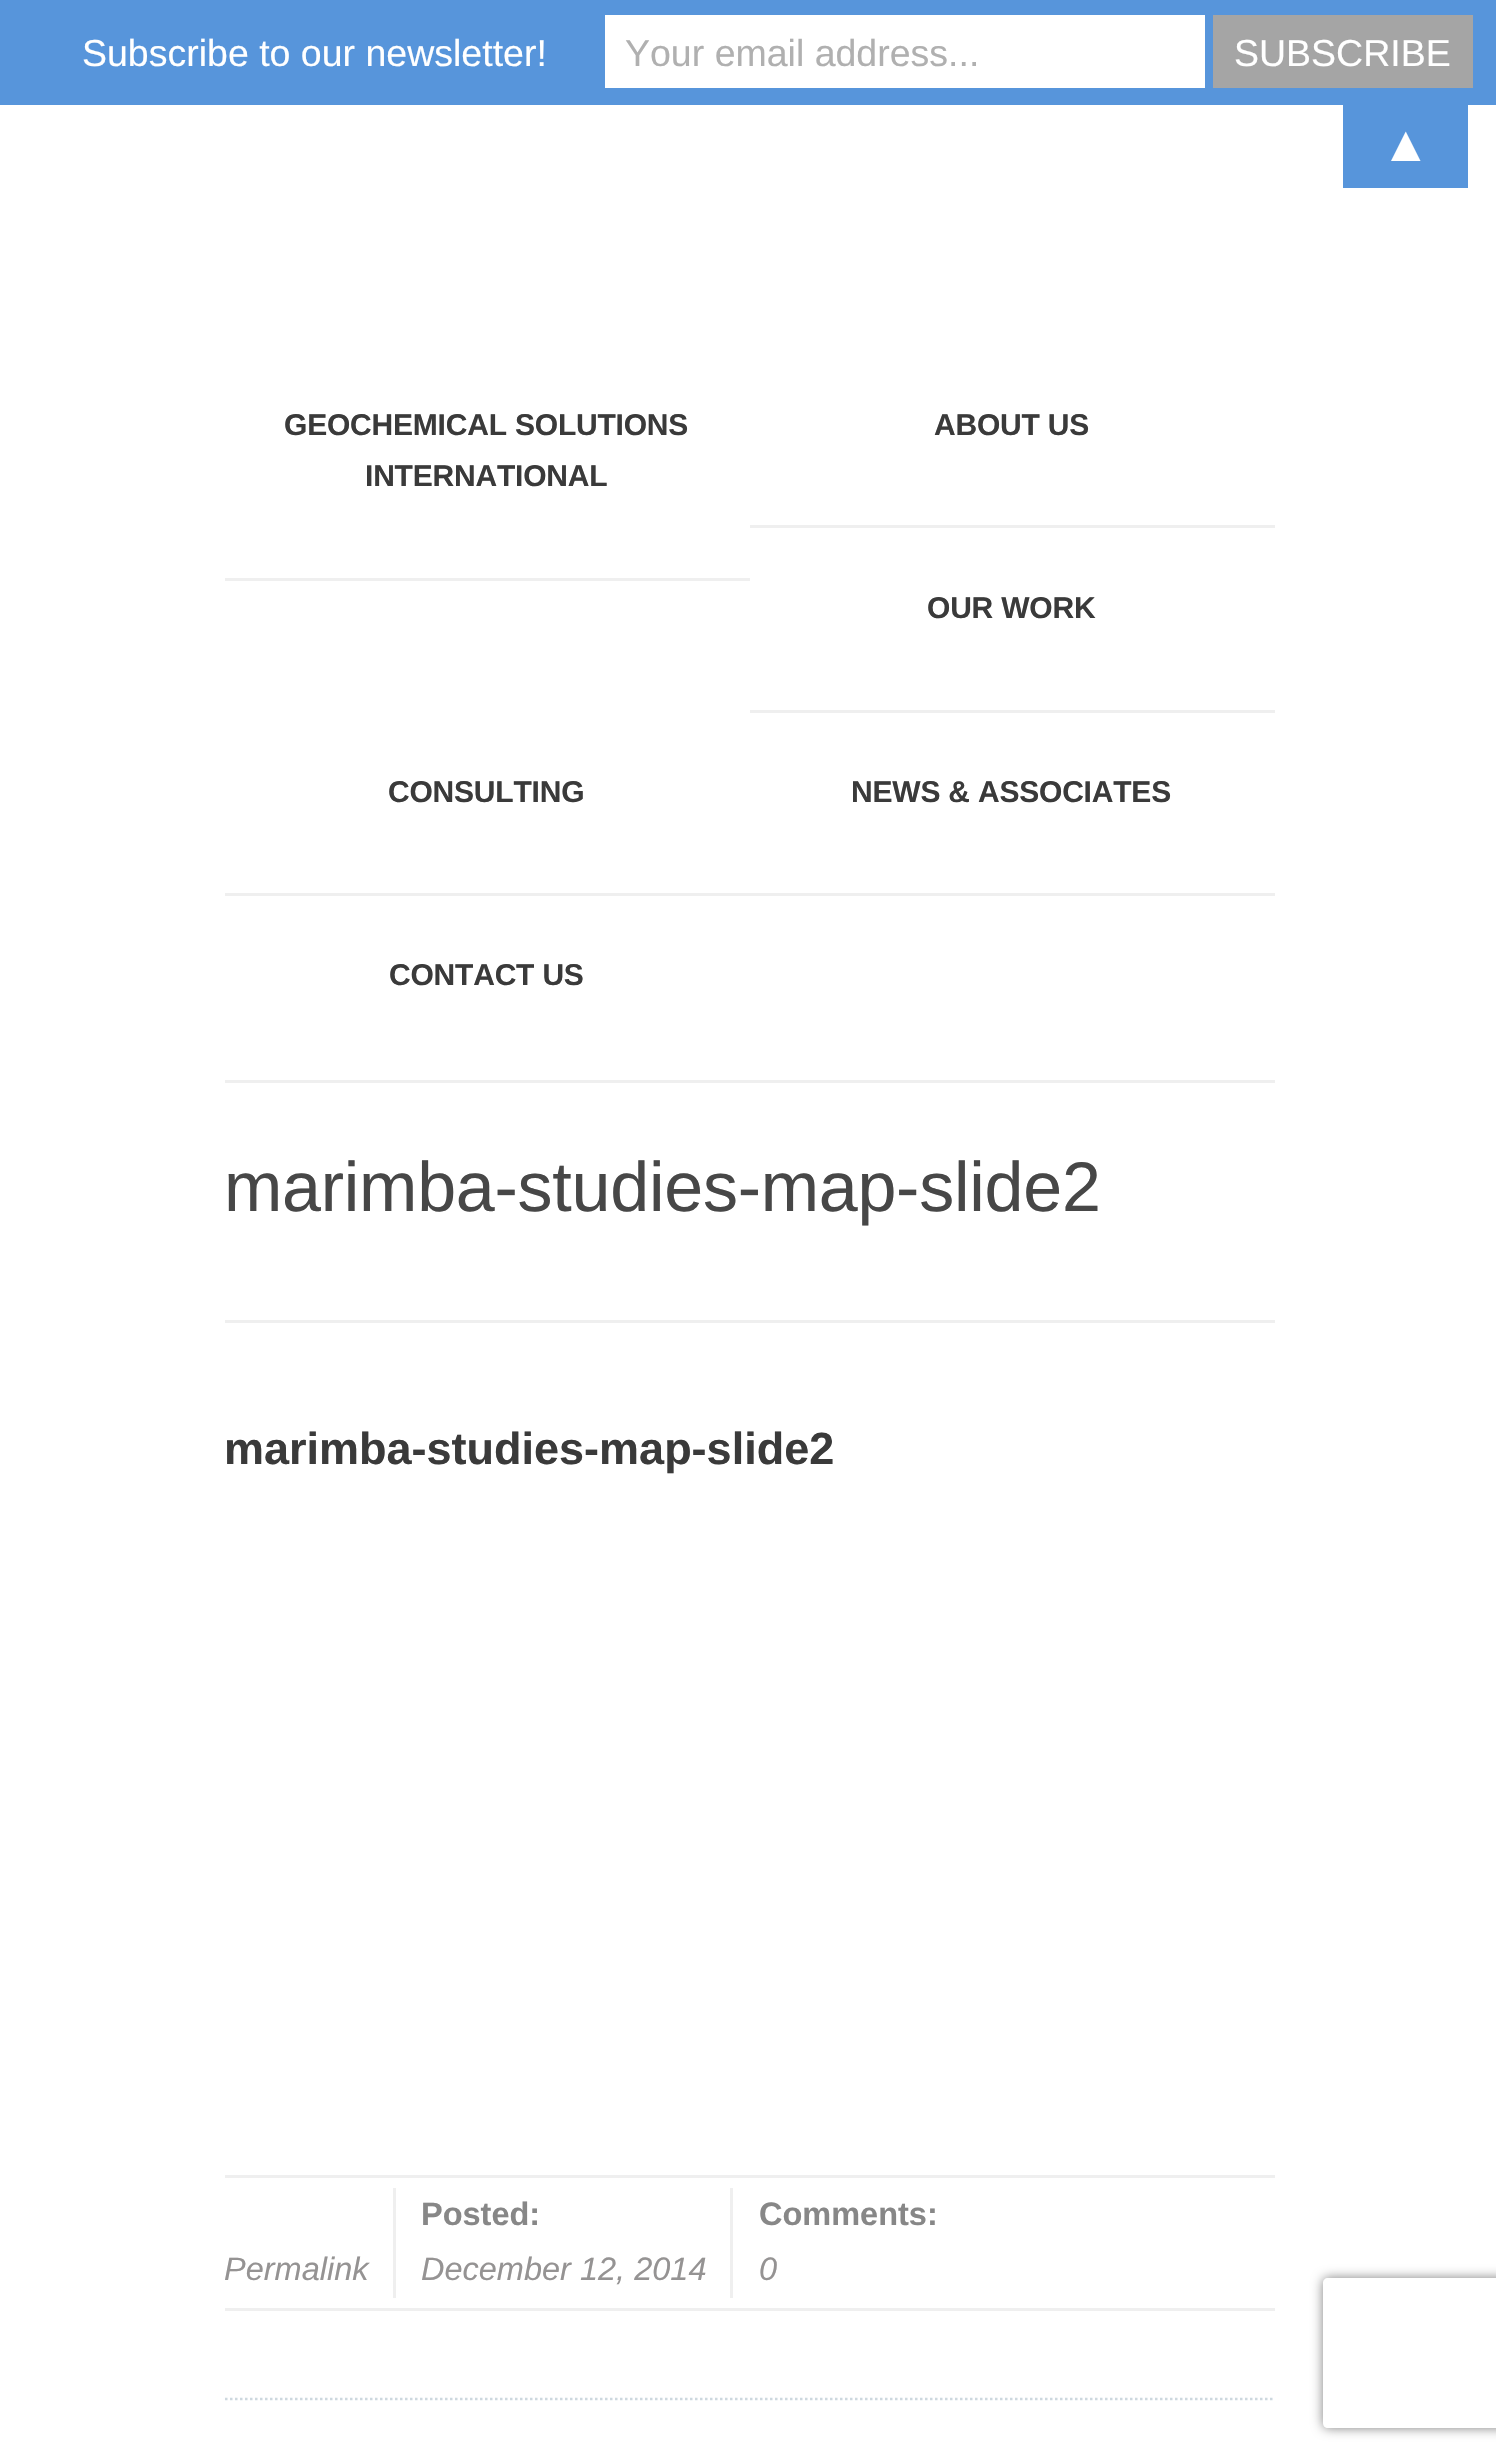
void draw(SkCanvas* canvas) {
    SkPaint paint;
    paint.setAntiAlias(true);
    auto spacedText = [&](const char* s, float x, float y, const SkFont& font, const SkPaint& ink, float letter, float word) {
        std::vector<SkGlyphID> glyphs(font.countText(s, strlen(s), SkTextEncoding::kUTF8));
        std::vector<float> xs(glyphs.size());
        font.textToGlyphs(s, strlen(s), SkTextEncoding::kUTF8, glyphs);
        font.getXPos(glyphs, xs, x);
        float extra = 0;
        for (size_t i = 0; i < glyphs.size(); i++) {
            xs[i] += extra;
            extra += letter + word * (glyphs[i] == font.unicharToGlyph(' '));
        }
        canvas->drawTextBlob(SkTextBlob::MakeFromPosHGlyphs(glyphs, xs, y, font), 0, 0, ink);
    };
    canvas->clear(0xFFFFFFFF);
    paint.setColor(0xFF5795DB);
    canvas->drawRect(SkRect::MakeXYWH(0, 0, 1496, 105), paint);
    SkFont font1(fontMgr->matchFamilyStyle("Liberation Sans", SkFontStyle::Normal()), 37.5f);
    font1.setSubpixel(true);
    paint.setColor(0xFFFFFFFF);
    canvas->drawString("Subscribe to our newsletter!", 82, 66, font1, paint);
    canvas->drawRect(SkRect::MakeXYWH(605, 15, 600, 73), paint);
    paint.setColor(0xFFB0B0B0);
    canvas->drawString("Your email address...", 625, 66, font1, paint);
    paint.setColor(0xFFA5A5A5);
    canvas->drawRect(SkRect::MakeXYWH(1213, 15, 260, 73), paint);
    paint.setColor(0xFFFFFFFF);
    canvas->drawString("SUBSCRIBE", 1234, 66, font1, paint);
    paint.setColor(0xFF5795DB);
    canvas->drawRect(SkRect::MakeXYWH(1343, 105, 125, 83), paint);
    SkFont font2(fontMgr->matchFamilyStyle("Liberation Sans", SkFontStyle::Normal()), 50);
    font2.setSubpixel(true);
    paint.setColor(0xFFFFFFFF);
    canvas->drawString("▲", 1381, 161, font2, paint);
    paint.setColor(0xFFEFEFEF);
    canvas->drawRect(SkRect::MakeXYWH(225, 1080, 1050, 3), paint);
    canvas->drawRect(SkRect::MakeXYWH(225, 578, 525, 3), paint);
    SkFont font3(fontMgr->matchFamilyStyle("Liberation Sans", SkFontStyle::Bold()), 30);
    font3.setSubpixel(true);
    paint.setColor(0xFF3A3A3A);
    spacedText("GEOCHEMICAL SOLUTIONS", 284, 435, font3, paint, -0.2f, 0);
    spacedText("INTERNATIONAL", 365, 486, font3, paint, -0.2f, 0);
    paint.setColor(0xFFEFEFEF);
    canvas->drawRect(SkRect::MakeXYWH(750, 525, 525, 3), paint);
    paint.setColor(0xFF3A3A3A);
    spacedText("ABOUT US", 934, 435, font3, paint, -0.2f, 0);
    paint.setColor(0xFFEFEFEF);
    canvas->drawRect(SkRect::MakeXYWH(750, 710, 525, 3), paint);
    paint.setColor(0xFF3A3A3A);
    spacedText("OUR WORK", 927, 618, font3, paint, -0.2f, 0);
    paint.setColor(0xFFEFEFEF);
    canvas->drawRect(SkRect::MakeXYWH(225, 893, 1050, 3), paint);
    paint.setColor(0xFF3A3A3A);
    spacedText("CONSULTING", 388, 802, font3, paint, -0.2f, 0);
    spacedText("NEWS & ASSOCIATES", 851, 802, font3, paint, -0.2f, 0);
    spacedText("CONTACT US", 389, 985, font3, paint, -0.2f, 0);
    paint.setColor(0xFFEFEFEF);
    canvas->drawRect(SkRect::MakeXYWH(225, 1320, 1050, 3), paint);
    SkFont font4(fontMgr->matchFamilyStyle("Liberation Sans", SkFontStyle::Normal()), 70);
    font4.setSubpixel(true);
    paint.setColor(0xFF474747);
    spacedText("marimba-studies-map-slide2", 224, 1211, font4, paint, -0.25f, 0);
    paint.setStyle(SkPaint::kStroke_Style);
    paint.setStrokeWidth(2.5f);
    paint.setColor(0xFFCED8DF);
    paint.setPathEffect(SkDashPathEffect::Make({{2.5f, 2.5f}}, 0));
    canvas->drawPath(SkPathBuilder().moveTo(225, 2399).lineTo(1275, 2399).detach(), paint);
    paint.setPathEffect(nullptr);
    SkFont font5(fontMgr->matchFamilyStyle("Liberation Sans", SkFontStyle::Bold()), 45);
    font5.setSubpixel(true);
    paint.setStyle(SkPaint::kFill_Style);
    paint.setColor(0xFF3A3A3A);
    canvas->drawString("marimba-studies-map-slide2", 224, 1464, font5, paint);
    paint.setColor(0xFFEFEFEF);
    canvas->drawRect(SkRect::MakeXYWH(225, 2175, 1050, 3), paint);
    canvas->drawRect(SkRect::MakeXYWH(225, 2308, 1050, 3), paint);
    SkFont font6(fontMgr->matchFamilyStyle("Liberation Sans", SkFontStyle::Italic()), 32.5f);
    font6.setSubpixel(true);
    paint.setColor(0xFF959393);
    canvas->drawString("Permalink", 224, 2280, font6, paint);
    paint.setColor(0xFFEFEFEF);
    canvas->drawRect(SkRect::MakeXYWH(393, 2188, 3, 110), paint);
    SkFont font7(fontMgr->matchFamilyStyle("Liberation Sans", SkFontStyle::Bold()), 32.5f);
    font7.setSubpixel(true);
    paint.setColor(0xFF878787);
    canvas->drawString("Posted:", 421, 2225, font7, paint);
    paint.setColor(0xFF959393);
    canvas->drawString("December 12, 2014", 421, 2280, font6, paint);
    paint.setColor(0xFFEFEFEF);
    canvas->drawRect(SkRect::MakeXYWH(730, 2188, 3, 110), paint);
    paint.setColor(0xFF878787);
    canvas->drawString("Comments:", 759, 2225, font7, paint);
    paint.setColor(0xFF959393);
    canvas->drawString("0", 759, 2280, font6, paint);
    canvas->save();
    canvas->clipPath(SkPathBuilder(SkPathFillType::kEvenOdd).moveTo(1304, 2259).lineTo(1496, 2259).lineTo(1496, 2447).lineTo(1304, 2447).close().moveTo(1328, 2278).lineTo(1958, 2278).cubicTo(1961, 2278, 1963, 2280, 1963, 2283).lineTo(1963, 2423).cubicTo(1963, 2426, 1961, 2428, 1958, 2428).lineTo(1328, 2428).cubicTo(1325, 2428, 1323, 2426, 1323, 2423).lineTo(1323, 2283).cubicTo(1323, 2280, 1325, 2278, 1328, 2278).close().detach(), true);
    paint.setColor(0xFF808080);
    paint.setMaskFilter(SkMaskFilter::MakeBlur(kNormal_SkBlurStyle, 6));
    canvas->drawRoundRect(SkRect::MakeXYWH(1323, 2278, 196, 150), 5, 5, paint);
    paint.setMaskFilter(nullptr);
    canvas->restore();
}
